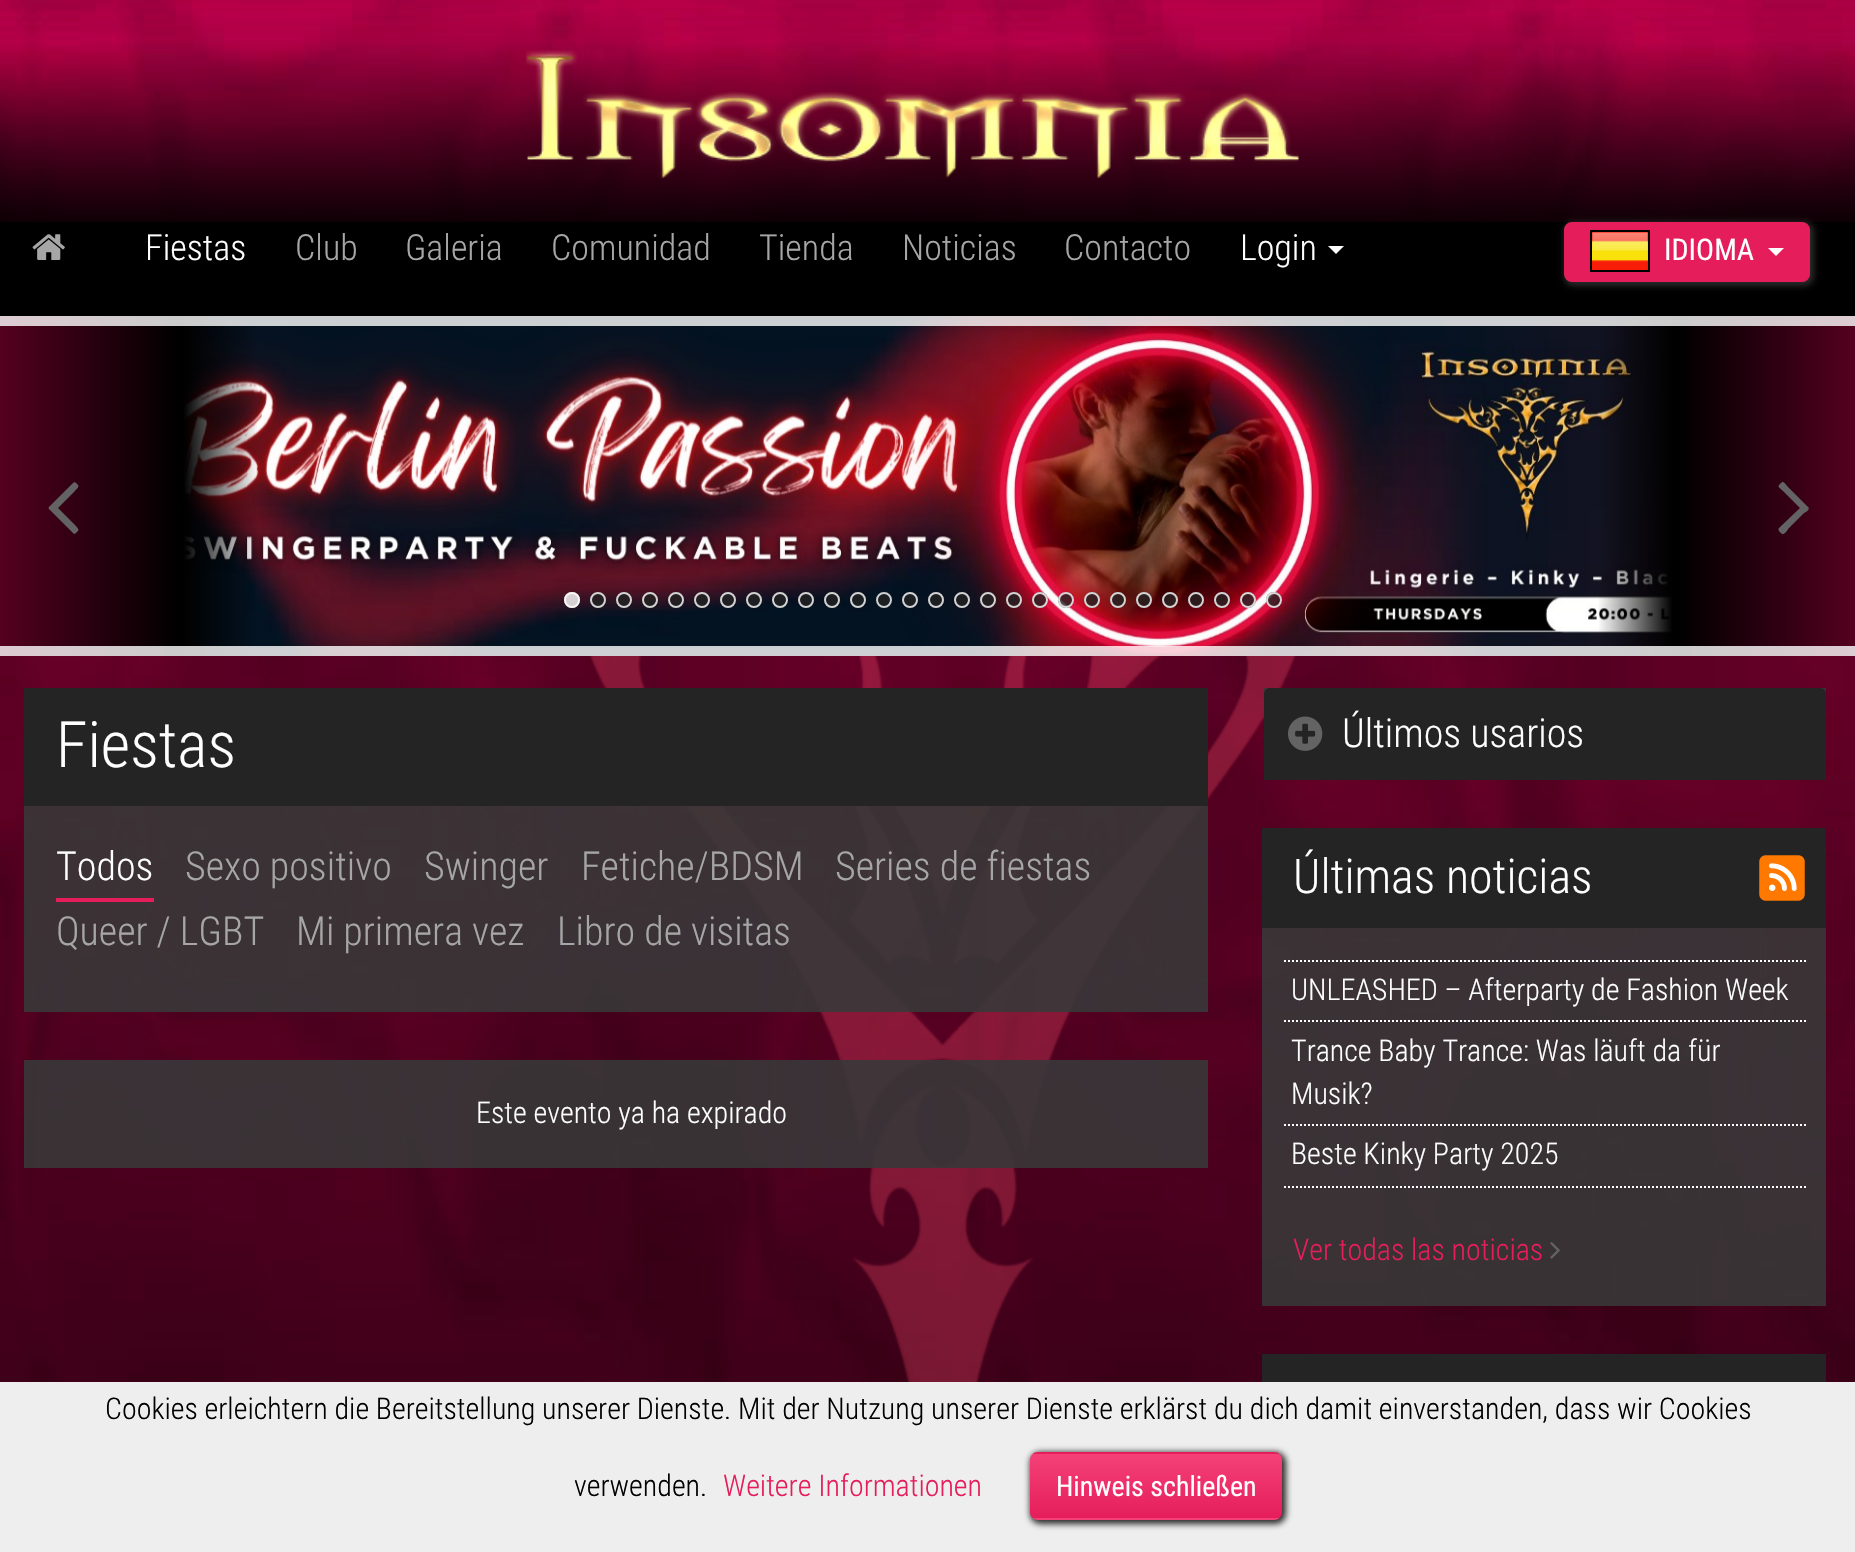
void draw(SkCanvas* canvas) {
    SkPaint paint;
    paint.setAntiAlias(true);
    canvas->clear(0xFFFFFFFF);
    canvas->drawImageRect(SkImages::DeferredFromEncodedData(SkData::MakeFromFileName("img1.png")), SkRect::MakeXYWH(0, 0, 1855, 1382), SkSamplingOptions());
    canvas->drawImageRect(SkImages::DeferredFromEncodedData(SkData::MakeFromFileName("img2.png")), SkRect::MakeXYWH(526, 50, 773, 128), SkSamplingOptions());
    paint.setColor(0xFF000000);
    canvas->drawRect(SkRect::MakeXYWH(0, 222, 1855, 94), paint);
    canvas->drawImageRect(SkImages::DeferredFromEncodedData(SkData::MakeFromFileName("img3.png")), SkRect::MakeXYWH(32, 234, 33, 26), SkSamplingOptions());
    SkFont font1(fontMgr->matchFamilyStyle("Roboto Condensed", SkFontStyle(300, SkFontStyle::kNormal_Width, SkFontStyle::kUpright_Slant)), 36);
    font1.setSubpixel(true);
    paint.setColor(0xFFFFFFFF);
    canvas->drawString("Fiestas", 145, 260, font1, paint);
    paint.setColor(0xFFA6A6A6);
    canvas->drawString("Club", 295, 260, font1, paint);
    canvas->drawString("Galeria", 405, 260, font1, paint);
    canvas->drawString("Comunidad", 551, 260, font1, paint);
    canvas->drawString("Tienda", 759, 260, font1, paint);
    canvas->drawString("Noticias", 902, 260, font1, paint);
    canvas->drawString("Contacto", 1064, 260, font1, paint);
    paint.setColor(0xFFFFFFFF);
    canvas->drawString("Login", 1240, 260, font1, paint);
    canvas->drawPath(SkPathBuilder().moveTo(1328, 246).lineTo(1344, 246).lineTo(1336, 254).close().detach(), paint);
    paint.setColor(0xFF2B2B2B);
    paint.setMaskFilter(SkMaskFilter::MakeBlur(kNormal_SkBlurStyle, 3));
    canvas->drawRoundRect(SkRect::MakeXYWH(1564, 222, 250, 64), 10, 10, paint);
    paint.setMaskFilter(nullptr);
    paint.setColor(0xFFE51E5B);
    canvas->drawRoundRect(SkRect::MakeXYWH(1565, 223, 244, 58), 7, 7, paint);
    paint.setStyle(SkPaint::kStroke_Style);
    paint.setStrokeWidth(2);
    canvas->drawRoundRect(SkRect::MakeXYWH(1565, 223, 244, 58), 7, 7, paint);
    paint.setColor(0xFF000000);
    canvas->drawRect(SkRect::MakeXYWH(1591, 231, 58, 40), paint);
    canvas->drawImageRect(SkImages::DeferredFromEncodedData(SkData::MakeFromFileName("img4.png")), SkRect::MakeXYWH(1592, 232, 56, 38), SkSamplingOptions());
    SkFont font2(fontMgr->matchFamilyStyle("Roboto Condensed", SkFontStyle::Normal()), 30);
    font2.setSubpixel(true);
    paint.setStyle(SkPaint::kFill_Style);
    paint.setColor(0xFFFFFFFF);
    canvas->drawString("IDIOMA", 1664, 260, font2, paint);
    canvas->drawPath(SkPathBuilder().moveTo(1768, 248).lineTo(1784, 248).lineTo(1776, 256).close().detach(), paint);
    canvas->drawImageRect(SkImages::DeferredFromEncodedData(SkData::MakeFromFileName("img5.png")), SkRect::MakeXYWH(184, 316, 1488, 340), SkSamplingOptions());
    {
        const SkColor colors[] = {0xFF55001F, 0xFF2E0011, 0xFF000000, 0xFF000000, 0x5E000000, 0x00000000};
        const float stops[] = {0, 0.29f, 0.64f, 0.66f, 0.83f, 0.93f};
        const SkPoint ends[] = {{0, 486}, {278, 486}};
        paint.setShader(SkGradientShader::MakeLinear(ends, colors, stops, 6, SkTileMode::kClamp));
        paint.setAlpha(255);
    }
    canvas->drawRect(SkRect::MakeXYWH(0, 316, 257, 340), paint);
    {
        const SkColor colors[] = {0x00000000, 0x5E000000, 0xFF000000, 0xFF000000, 0xFF2E0011, 0xFF55001F};
        const float stops[] = {0.07f, 0.17f, 0.34f, 0.36f, 0.71f, 1};
        const SkPoint ends[] = {{1578, 486}, {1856, 486}};
        paint.setShader(SkGradientShader::MakeLinear(ends, colors, stops, 6, SkTileMode::kClamp));
        paint.setAlpha(255);
    }
    canvas->drawRect(SkRect::MakeXYWH(1599, 316, 256, 340), paint);
    paint.setShader(nullptr);
    paint.setColor(0xCCFFFFFF);
    canvas->drawRect(SkRect::MakeXYWH(0, 316, 1855, 10), paint);
    paint.setColor(0xFF636363);
    canvas->drawPath(SkPathBuilder().moveTo(78, 485).cubicTo(80, 487, 75, 490, 75, 491).lineTo(58, 508).lineTo(75, 525).cubicTo(78, 529, 80, 529, 77, 532).cubicTo(76, 533, 74, 535, 73, 533).lineTo(53, 513).cubicTo(47, 507, 47, 509, 53, 503).lineTo(73, 483).cubicTo(75, 481, 77, 484, 78, 485).close().detach(), paint);
    canvas->drawPath(SkPathBuilder().moveTo(1808, 507).cubicTo(1811, 509, 1805, 513, 1804, 513).lineTo(1788, 529).cubicTo(1788, 530, 1784, 535, 1782, 534).cubicTo(1781, 533, 1777, 530, 1779, 528).lineTo(1800, 508).lineTo(1783, 491).cubicTo(1779, 487, 1777, 487, 1780, 484).cubicTo(1784, 480, 1784, 483, 1788, 487).close().detach(), paint);
    paint.setColor(0xCCFFFFFF);
    canvas->drawCircle(572, 600, 8, paint);
    paint.setStyle(SkPaint::kStroke_Style);
    canvas->drawCircle(572, 600, 7, paint);
    paint.setStyle(SkPaint::kFill_Style);
    paint.setColor(0xCC222222);
    canvas->drawCircle(598, 600, 8, paint);
    paint.setStyle(SkPaint::kStroke_Style);
    paint.setColor(0xCCFFFFFF);
    canvas->drawCircle(598, 600, 7, paint);
    paint.setStyle(SkPaint::kFill_Style);
    paint.setColor(0xCC222222);
    canvas->drawCircle(624, 600, 8, paint);
    paint.setStyle(SkPaint::kStroke_Style);
    paint.setColor(0xCCFFFFFF);
    canvas->drawCircle(624, 600, 7, paint);
    paint.setStyle(SkPaint::kFill_Style);
    paint.setColor(0xCC222222);
    canvas->drawCircle(650, 600, 8, paint);
    paint.setStyle(SkPaint::kStroke_Style);
    paint.setColor(0xCCFFFFFF);
    canvas->drawCircle(650, 600, 7, paint);
    paint.setStyle(SkPaint::kFill_Style);
    paint.setColor(0xCC222222);
    canvas->drawCircle(676, 600, 8, paint);
    paint.setStyle(SkPaint::kStroke_Style);
    paint.setColor(0xCCFFFFFF);
    canvas->drawCircle(676, 600, 7, paint);
    paint.setStyle(SkPaint::kFill_Style);
    paint.setColor(0xCC222222);
    canvas->drawCircle(702, 600, 8, paint);
    paint.setStyle(SkPaint::kStroke_Style);
    paint.setColor(0xCCFFFFFF);
    canvas->drawCircle(702, 600, 7, paint);
    paint.setStyle(SkPaint::kFill_Style);
    paint.setColor(0xCC222222);
    canvas->drawCircle(728, 600, 8, paint);
    paint.setStyle(SkPaint::kStroke_Style);
    paint.setColor(0xCCFFFFFF);
    canvas->drawCircle(728, 600, 7, paint);
    paint.setStyle(SkPaint::kFill_Style);
    paint.setColor(0xCC222222);
    canvas->drawCircle(754, 600, 8, paint);
    paint.setStyle(SkPaint::kStroke_Style);
    paint.setColor(0xCCFFFFFF);
    canvas->drawCircle(754, 600, 7, paint);
    paint.setStyle(SkPaint::kFill_Style);
    paint.setColor(0xCC222222);
    canvas->drawCircle(780, 600, 8, paint);
    paint.setStyle(SkPaint::kStroke_Style);
    paint.setColor(0xCCFFFFFF);
    canvas->drawCircle(780, 600, 7, paint);
    paint.setStyle(SkPaint::kFill_Style);
    paint.setColor(0xCC222222);
    canvas->drawCircle(806, 600, 8, paint);
    paint.setStyle(SkPaint::kStroke_Style);
    paint.setColor(0xCCFFFFFF);
    canvas->drawCircle(806, 600, 7, paint);
    paint.setStyle(SkPaint::kFill_Style);
    paint.setColor(0xCC222222);
    canvas->drawCircle(832, 600, 8, paint);
    paint.setStyle(SkPaint::kStroke_Style);
    paint.setColor(0xCCFFFFFF);
    canvas->drawCircle(832, 600, 7, paint);
    paint.setStyle(SkPaint::kFill_Style);
    paint.setColor(0xCC222222);
    canvas->drawCircle(858, 600, 8, paint);
    paint.setStyle(SkPaint::kStroke_Style);
    paint.setColor(0xCCFFFFFF);
    canvas->drawCircle(858, 600, 7, paint);
    paint.setStyle(SkPaint::kFill_Style);
    paint.setColor(0xFF1C1F22);
    canvas->drawCircle(884, 600, 7, paint);
    paint.setStyle(SkPaint::kStroke_Style);
    paint.setColor(0xFFCDD0D3);
    canvas->drawCircle(884, 600, 7, paint);
    paint.setStyle(SkPaint::kFill_Style);
    paint.setColor(0xCC222222);
    canvas->drawCircle(910, 600, 8, paint);
    paint.setStyle(SkPaint::kStroke_Style);
    paint.setColor(0xCCFFFFFF);
    canvas->drawCircle(910, 600, 7, paint);
    paint.setStyle(SkPaint::kFill_Style);
    paint.setColor(0xCC222222);
    canvas->drawCircle(936, 600, 8, paint);
    paint.setStyle(SkPaint::kStroke_Style);
    paint.setColor(0xCCFFFFFF);
    canvas->drawCircle(936, 600, 7, paint);
    paint.setStyle(SkPaint::kFill_Style);
    paint.setColor(0xCC222222);
    canvas->drawCircle(962, 600, 8, paint);
    paint.setStyle(SkPaint::kStroke_Style);
    paint.setColor(0xCCFFFFFF);
    canvas->drawCircle(962, 600, 7, paint);
    paint.setStyle(SkPaint::kFill_Style);
    paint.setColor(0xCC222222);
    canvas->drawCircle(988, 600, 8, paint);
    paint.setStyle(SkPaint::kStroke_Style);
    paint.setColor(0xCCFFFFFF);
    canvas->drawCircle(988, 600, 7, paint);
    paint.setStyle(SkPaint::kFill_Style);
    paint.setColor(0xCC222222);
    canvas->drawCircle(1014, 600, 8, paint);
    paint.setStyle(SkPaint::kStroke_Style);
    paint.setColor(0xCCFFFFFF);
    canvas->drawCircle(1014, 600, 7, paint);
    paint.setStyle(SkPaint::kFill_Style);
    paint.setColor(0xCC222222);
    canvas->drawCircle(1040, 600, 8, paint);
    paint.setStyle(SkPaint::kStroke_Style);
    paint.setColor(0xCCFFFFFF);
    canvas->drawCircle(1040, 600, 7, paint);
    paint.setStyle(SkPaint::kFill_Style);
    paint.setColor(0xCC222222);
    canvas->drawCircle(1066, 600, 8, paint);
    paint.setStyle(SkPaint::kStroke_Style);
    paint.setColor(0xCCFFFFFF);
    canvas->drawCircle(1066, 600, 7, paint);
    paint.setStyle(SkPaint::kFill_Style);
    paint.setColor(0xCC222222);
    canvas->drawCircle(1092, 600, 8, paint);
    paint.setStyle(SkPaint::kStroke_Style);
    paint.setColor(0xCCFFFFFF);
    canvas->drawCircle(1092, 600, 7, paint);
    paint.setStyle(SkPaint::kFill_Style);
    paint.setColor(0xCC222222);
    canvas->drawCircle(1118, 600, 8, paint);
    paint.setStyle(SkPaint::kStroke_Style);
    paint.setColor(0xCCFFFFFF);
    canvas->drawCircle(1118, 600, 7, paint);
    paint.setStyle(SkPaint::kFill_Style);
    paint.setColor(0xCC222222);
    canvas->drawCircle(1144, 600, 8, paint);
    paint.setStyle(SkPaint::kStroke_Style);
    paint.setColor(0xCCFFFFFF);
    canvas->drawCircle(1144, 600, 7, paint);
    paint.setStyle(SkPaint::kFill_Style);
    paint.setColor(0xCC222222);
    canvas->drawCircle(1170, 600, 8, paint);
    paint.setStyle(SkPaint::kStroke_Style);
    paint.setColor(0xCCFFFFFF);
    canvas->drawCircle(1170, 600, 7, paint);
    paint.setStyle(SkPaint::kFill_Style);
    paint.setColor(0xCC222222);
    canvas->drawCircle(1196, 600, 8, paint);
    paint.setStyle(SkPaint::kStroke_Style);
    paint.setColor(0xCCFFFFFF);
    canvas->drawCircle(1196, 600, 7, paint);
    paint.setStyle(SkPaint::kFill_Style);
    paint.setColor(0xCC222222);
    canvas->drawCircle(1222, 600, 8, paint);
    paint.setStyle(SkPaint::kStroke_Style);
    paint.setColor(0xCCFFFFFF);
    canvas->drawCircle(1222, 600, 7, paint);
    paint.setStyle(SkPaint::kFill_Style);
    paint.setColor(0xCC222222);
    canvas->drawCircle(1248, 600, 8, paint);
    paint.setStyle(SkPaint::kStroke_Style);
    paint.setColor(0xCCFFFFFF);
    canvas->drawCircle(1248, 600, 7, paint);
    paint.setStyle(SkPaint::kFill_Style);
    paint.setColor(0xCC222222);
    canvas->drawCircle(1274, 600, 8, paint);
    paint.setStyle(SkPaint::kStroke_Style);
    paint.setColor(0xCCFFFFFF);
    canvas->drawCircle(1274, 600, 7, paint);
    paint.setStyle(SkPaint::kFill_Style);
    canvas->drawRect(SkRect::MakeXYWH(0, 646, 1855, 10), paint);
    canvas->drawImageRect(SkImages::DeferredFromEncodedData(SkData::MakeFromFileName("img6.png")), SkRect::MakeXYWH(590, 656, 706, 726), SkSamplingOptions());
    paint.setColor(0xFF242424);
    canvas->drawRect(SkRect::MakeXYWH(24, 688, 1184, 118), paint);
    SkFont font3(fontMgr->matchFamilyStyle("Roboto Condensed", SkFontStyle(300, SkFontStyle::kNormal_Width, SkFontStyle::kUpright_Slant)), 64);
    font3.setSubpixel(true);
    paint.setColor(0xFFFFFFFF);
    canvas->drawString("Fiestas", 56, 767, font3, paint);
    paint.setColor(0xE6373737);
    canvas->drawRect(SkRect::MakeXYWH(24, 806, 1184, 206), paint);
    paint.setColor(0xFFE51E5B);
    canvas->drawRect(SkRect::MakeXYWH(56, 898, 98, 4), paint);
    SkFont font4(fontMgr->matchFamilyStyle("Roboto Condensed", SkFontStyle(300, SkFontStyle::kNormal_Width, SkFontStyle::kUpright_Slant)), 40);
    font4.setSubpixel(true);
    paint.setColor(0xFFFFFFFF);
    canvas->drawString("Todos", 56, 880, font4, paint);
    paint.setColor(0xFFA6A6A6);
    canvas->drawString("Sexo positivo", 185, 880, font4, paint);
    canvas->drawString("Swinger", 424, 880, font4, paint);
    canvas->drawString("Fetiche/BDSM", 581, 880, font4, paint);
    canvas->drawString("Series de fiestas", 835, 880, font4, paint);
    canvas->drawString("Queer / LGBT", 56, 945, font4, paint);
    canvas->drawString("Mi primera vez", 296, 945, font4, paint);
    canvas->drawString("Libro de visitas", 557, 945, font4, paint);
    paint.setColor(0xE6373737);
    canvas->drawRect(SkRect::MakeXYWH(24, 1060, 1184, 108), paint);
    SkFont font5(fontMgr->matchFamilyStyle("Roboto Condensed", SkFontStyle(300, SkFontStyle::kNormal_Width, SkFontStyle::kUpright_Slant)), 30);
    font5.setSubpixel(true);
    paint.setColor(0xFFFFFFFF);
    canvas->drawString("Este evento ya ha expirado", 476, 1123, font5, paint);
    paint.setColor(0xE6373737);
    canvas->drawRect(SkRect::MakeXYWH(1264, 688, 562, 6), paint);
    paint.setColor(0xFF242424);
    canvas->drawPath(SkPathBuilder().moveTo(1270, 688).lineTo(1820, 688).cubicTo(1823.5f, 688, 1826, 690.5f, 1826, 694).lineTo(1826, 780).lineTo(1264, 780).lineTo(1264, 694).cubicTo(1264, 690.5f, 1266.5f, 688, 1270, 688).close().detach(), paint);
    canvas->drawImageRect(SkImages::DeferredFromEncodedData(SkData::MakeFromFileName("img7.png")), SkRect::MakeXYWH(1288, 716, 35, 35), SkSamplingOptions());
    paint.setColor(0xFFFFFFFF);
    canvas->drawString("Últimos usarios", 1342, 747, font4, paint);
    paint.setColor(0xFF242424);
    canvas->drawRect(SkRect::MakeXYWH(1262, 828, 564, 100), paint);
    SkFont font6(fontMgr->matchFamilyStyle("Roboto Condensed", SkFontStyle(300, SkFontStyle::kNormal_Width, SkFontStyle::kUpright_Slant)), 48);
    font6.setSubpixel(true);
    paint.setColor(0xFFFFFFFF);
    canvas->drawString("Últimas noticias", 1293, 893, font6, paint);
    canvas->drawImageRect(SkImages::DeferredFromEncodedData(SkData::MakeFromFileName("img8.png")), SkRect::MakeXYWH(1759, 855, 46, 46), SkSamplingOptions());
    paint.setColor(0xE6373737);
    canvas->drawRect(SkRect::MakeXYWH(1262, 928, 564, 378), paint);
    paint.setStyle(SkPaint::kStroke_Style);
    paint.setColor(0xFFFFFFFF);
    paint.setPathEffect(SkDashPathEffect::Make({{2, 2}}, 0));
    canvas->drawPath(SkPathBuilder().moveTo(1284, 961).lineTo(1806, 961).detach(), paint);
    paint.setPathEffect(nullptr);
    paint.setPathEffect(SkDashPathEffect::Make({{2, 2}}, 0));
    canvas->drawPath(SkPathBuilder().moveTo(1284, 1021).lineTo(1806, 1021).detach(), paint);
    paint.setPathEffect(nullptr);
    paint.setStyle(SkPaint::kFill_Style);
    canvas->drawString("UNLEASHED – Afterparty de Fashion Week", 1291, 1000, font5, paint);
    paint.setStyle(SkPaint::kStroke_Style);
    paint.setPathEffect(SkDashPathEffect::Make({{2, 2}}, 0));
    canvas->drawPath(SkPathBuilder().moveTo(1284, 1125).lineTo(1806, 1125).detach(), paint);
    paint.setPathEffect(nullptr);
    paint.setStyle(SkPaint::kFill_Style);
    canvas->drawString("Trance Baby Trance: Was läuft da für", 1291, 1061, font5, paint);
    canvas->drawString("Musik?", 1291, 1104, font5, paint);
    paint.setStyle(SkPaint::kStroke_Style);
    paint.setPathEffect(SkDashPathEffect::Make({{2, 2}}, 0));
    canvas->drawPath(SkPathBuilder().moveTo(1284, 1187).lineTo(1806, 1187).detach(), paint);
    paint.setPathEffect(nullptr);
    paint.setStyle(SkPaint::kFill_Style);
    canvas->drawString("Beste Kinky Party 2025", 1291, 1164, font5, paint);
    paint.setColor(0xFFE51E5B);
    canvas->drawString("Ver todas las noticias", 1293, 1260, font5, paint);
    canvas->drawImageRect(SkImages::DeferredFromEncodedData(SkData::MakeFromFileName("img9.png")), SkRect::MakeXYWH(1550, 1242, 10, 17), SkSamplingOptions());
    paint.setColor(0xFF242424);
    canvas->drawRect(SkRect::MakeXYWH(1262, 1354, 564, 28), paint);
    paint.setColor(0xFFEEEEEE);
    canvas->drawRect(SkRect::MakeXYWH(0, 1382, 1855, 170), paint);
    paint.setColor(0xFF000000);
    canvas->drawString("Cookies erleichtern die Bereitstellung unserer Dienste. Mit der Nutzung unserer Dienste erklärst du dich damit einverstanden, dass wir Cookies", 105, 1419, font5, paint);
    canvas->drawString("verwenden.", 574, 1496, font5, paint);
    paint.setColor(0xFFE51E5B);
    canvas->drawString("Weitere Informationen", 723, 1496, font5, paint);
    paint.setColor(0xFF2B2B2B);
    paint.setMaskFilter(SkMaskFilter::MakeBlur(kNormal_SkBlurStyle, 3));
    canvas->drawRoundRect(SkRect::MakeXYWH(1030, 1452, 256, 72), 10, 10, paint);
    paint.setMaskFilter(nullptr);
    canvas->save();
    canvas->clipPath(SkPathBuilder().moveTo(1038, 1452).lineTo(1274, 1452).cubicTo(1278.5f, 1452, 1282, 1455.5f, 1282, 1460).lineTo(1282, 1512).cubicTo(1282, 1516.5f, 1278.5f, 1520, 1274, 1520).lineTo(1038, 1520).cubicTo(1033.5f, 1520, 1030, 1516.5f, 1030, 1512).lineTo(1030, 1460).cubicTo(1030, 1455.5f, 1033.5f, 1452, 1038, 1452).close().detach(), true);
    {
        const SkColor colors[] = {0xFFF54178, 0xFFE51E5B};
        const float stops[] = {0, 1};
        const SkPoint ends[] = {{1156, 1390}, {1156, 1454}};
        paint.setShader(SkGradientShader::MakeLinear(ends, colors, stops, 2, SkTileMode::kClamp));
        paint.setAlpha(255);
    }
    canvas->drawRect(SkRect::MakeXYWH(1030, 1452, 252, 2), paint);
    {
        const SkColor colors[] = {0xFFF54178, 0xFFE51E5B};
        const float stops[] = {0, 1};
        const SkPoint ends[] = {{1156, 1454}, {1156, 1518}};
        paint.setShader(SkGradientShader::MakeLinear(ends, colors, stops, 2, SkTileMode::kClamp));
        paint.setAlpha(255);
    }
    canvas->drawRect(SkRect::MakeXYWH(1030, 1454, 252, 64), paint);
    {
        const SkColor colors[] = {0xFFF54178, 0xFFE51E5B};
        const float stops[] = {0, 1};
        const SkPoint ends[] = {{1156, 1518}, {1156, 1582}};
        paint.setShader(SkGradientShader::MakeLinear(ends, colors, stops, 2, SkTileMode::kClamp));
        paint.setAlpha(255);
    }
    canvas->drawRect(SkRect::MakeXYWH(1030, 1518, 252, 2), paint);
    canvas->restore();
    SkFont font7(fontMgr->matchFamilyStyle("Roboto Condensed", SkFontStyle::Normal()), 28);
    font7.setSubpixel(true);
    paint.setShader(nullptr);
    paint.setColor(0xFFFFFFFF);
    canvas->drawString("Hinweis schließen", 1056, 1496, font7, paint);
}
